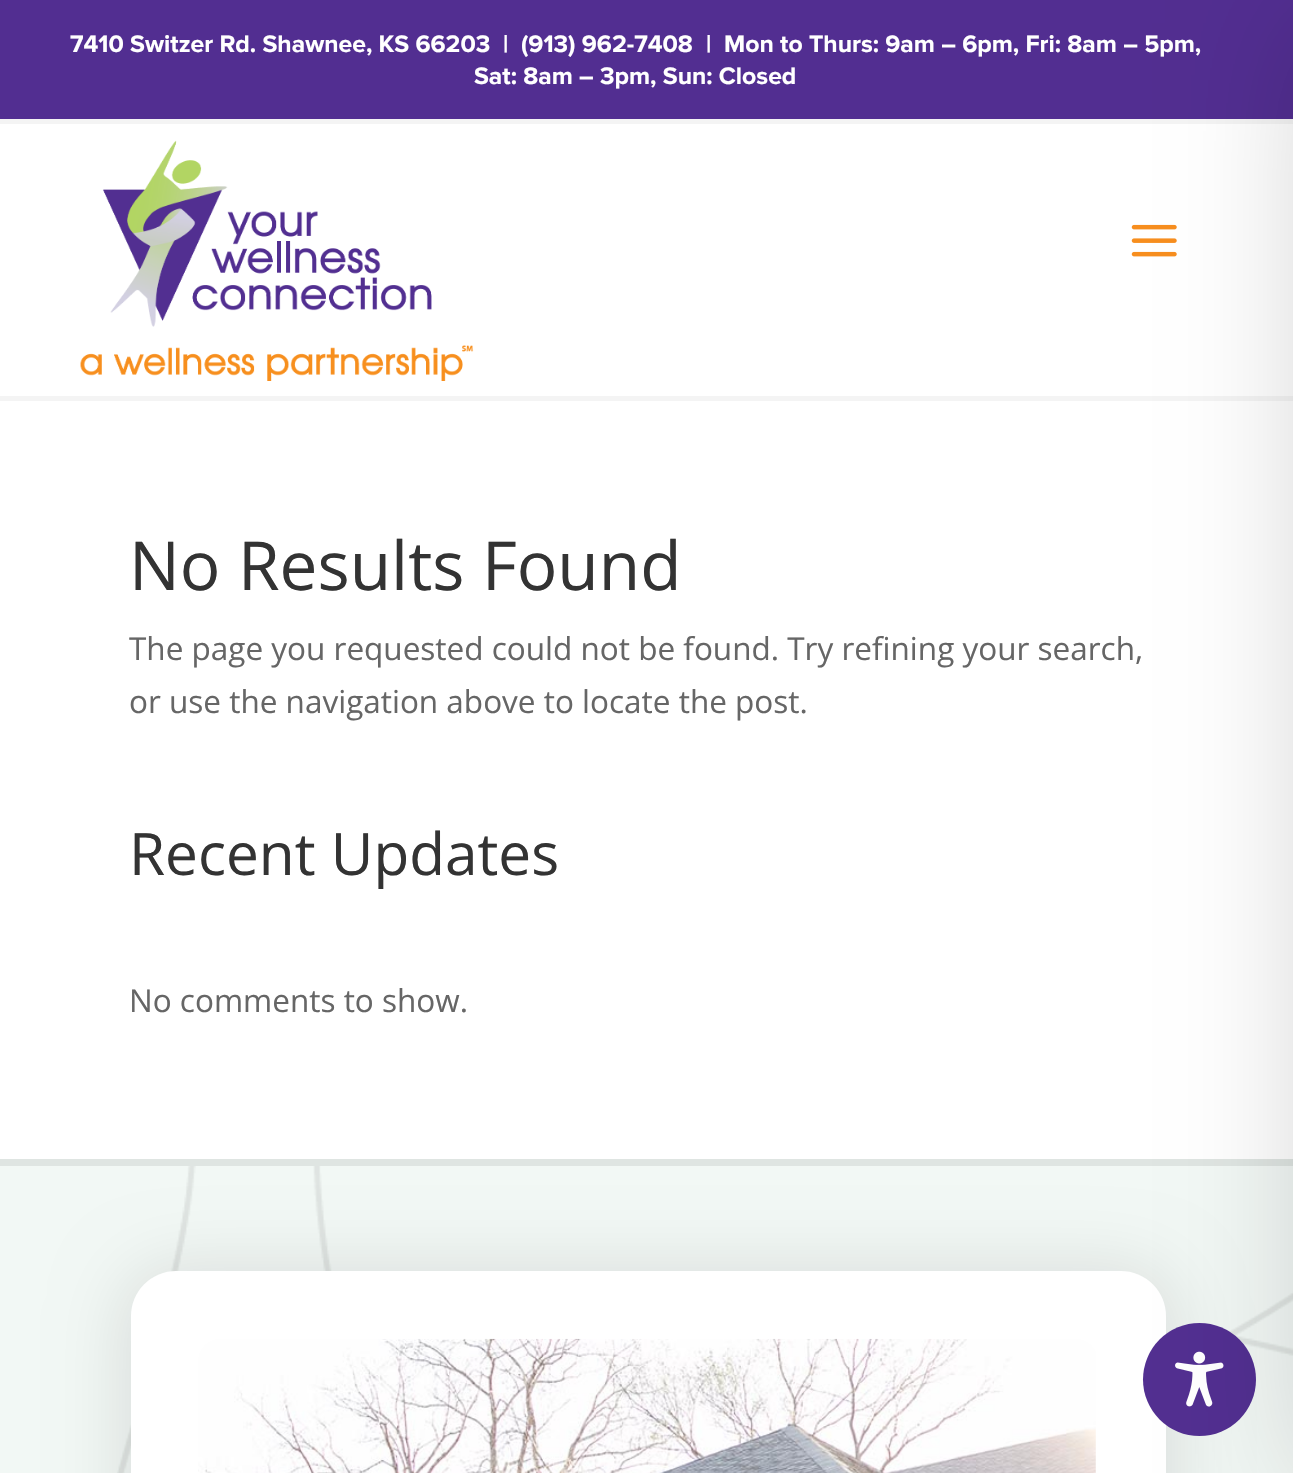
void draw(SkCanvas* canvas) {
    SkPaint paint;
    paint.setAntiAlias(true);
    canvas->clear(0xFFFFFFFF);
    paint.setColor(0xFF522E91);
    canvas->drawRect(SkRect::MakeXYWH(0, 0, 1293, 119), paint);
    paint.setColor(0xFFF4F4F4);
    canvas->drawRect(SkRect::MakeXYWH(0, 119, 1293, 5), paint);
    SkFont font1(fontMgr->matchFamilyStyle("Proxima Nova", SkFontStyle::Bold()), 24.75f);
    font1.setSubpixel(true);
    paint.setColor(0xFFFFFFFF);
    canvas->drawString("7410 Switzer Rd. Shawnee, KS 66203", 70, 52, font1, paint);
    canvas->drawString("|", 503, 52, font1, paint);
    canvas->drawString("(913) 962-7408", 521, 52, font1, paint);
    canvas->drawString("|  Mon to Thurs: 9am – 6pm, Fri: 8am – 5pm,", 706, 52, font1, paint);
    canvas->drawString("Sat: 8am – 3pm, Sun: Closed", 474, 84, font1, paint);
    paint.setColor(0xFFF4F4F4);
    canvas->drawRect(SkRect::MakeXYWH(0, 396, 1293, 5), paint);
    canvas->drawImageRect(SkImages::DeferredFromEncodedData(SkData::MakeFromFileName("img1.png")), SkRect::MakeXYWH(80, 140, 394, 241), SkSamplingOptions());
    canvas->drawImageRect(SkImages::DeferredFromEncodedData(SkData::MakeFromFileName("img2.png")), SkRect::MakeXYWH(1131, 224, 46, 33), SkSamplingOptions());
    SkFont font2(fontMgr->matchFamilyStyle("Open Sans", SkFontStyle::Normal()), 67.5f);
    font2.setSubpixel(true);
    paint.setColor(0xFF333333);
    canvas->drawString("No Results Found", 129, 590, font2, paint);
    SkFont font3(fontMgr->matchFamilyStyle("Open Sans", SkFontStyle::Normal()), 31.5f);
    font3.setSubpixel(true);
    paint.setColor(0xFF666666);
    canvas->drawString("The page you requested could not be found. Try refining your search,", 129, 660, font3, paint);
    canvas->drawString("or use the navigation above to locate the post.", 129, 713, font3, paint);
    SkFont font4(fontMgr->matchFamilyStyle("Open Sans", SkFontStyle::Normal()), 58.5f);
    font4.setSubpixel(true);
    paint.setColor(0xFF333333);
    canvas->drawString("Recent Updates", 129, 875, font4, paint);
    paint.setColor(0xFF666666);
    canvas->drawString("No comments to show.", 129, 1012, font3, paint);
    paint.setColor(0xFFF2F8F5);
    canvas->drawRect(SkRect::MakeXYWH(0, 1166, 1293, 307), paint);
    canvas->drawImageRect(SkImages::DeferredFromEncodedData(SkData::MakeFromFileName("img3.png")), SkRect::MakeXYWH(117, 1166, 1176, 307), SkSamplingOptions());
    paint.setColor(0xFFDFE5E2);
    canvas->drawRect(SkRect::MakeXYWH(0, 1159, 1293, 7), paint);
    paint.setColor(0x1A000000);
    paint.setMaskFilter(SkMaskFilter::MakeBlur(kNormal_SkBlurStyle, 34));
    canvas->drawRoundRect(SkRect::MakeXYWH(122, 1267, 1053, 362), 54, 54, paint);
    paint.setMaskFilter(nullptr);
    paint.setColor(0xFFFFFFFF);
    canvas->drawRoundRect(SkRect::MakeXYWH(131, 1271, 1035, 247), 45, 45, paint);
    canvas->drawImageRect(SkImages::DeferredFromEncodedData(SkData::MakeFromFileName("img4.png")), SkRect::MakeXYWH(198, 1338, 898, 135), SkSamplingOptions());
    paint.setColor(0xFF522F91);
    canvas->drawCircle(1199.5f, 1379.5f, 56.5f, paint);
    canvas->drawImageRect(SkImages::DeferredFromEncodedData(SkData::MakeFromFileName("img5.png")), SkRect::MakeXYWH(1175, 1351, 49, 56), SkSamplingOptions());
    paint.setColor(0x33000000);
    paint.setMaskFilter(SkMaskFilter::MakeBlur(kNormal_SkBlurStyle, 67.5f));
    canvas->drawRect(SkRect::MakeXYWH(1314, 23, 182, 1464), paint);
    paint.setMaskFilter(nullptr);
}
